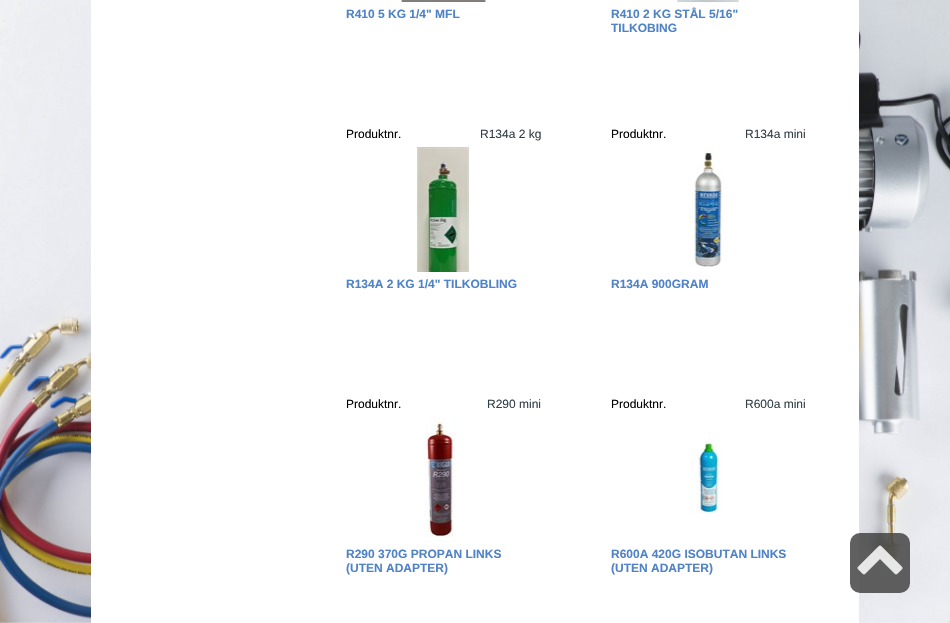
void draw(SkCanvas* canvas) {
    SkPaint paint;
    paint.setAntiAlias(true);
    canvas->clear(0xFFFFFFFF);
    canvas->drawImageRect(SkImages::DeferredFromEncodedData(SkData::MakeFromFileName("img1.png")), SkRect::MakeXYWH(0, 0, 950, 623), SkSamplingOptions());
    paint.setColor(0xFFFFFFFF);
    canvas->drawRect(SkRect::MakeXYWH(91, 0, 768, 623), paint);
    canvas->drawImageRect(SkImages::DeferredFromEncodedData(SkData::MakeFromFileName("img2.png")), SkRect::MakeXYWH(401, 0, 85, 2), SkSamplingOptions());
    SkFont font1(fontMgr->matchFamilyStyle("Liberation Sans", SkFontStyle::Bold()), 12);
    font1.setSubpixel(true);
    paint.setColor(0xFF4F82C7);
    canvas->drawString("R410 5 KG 1/4\" MFL", 346, 18, font1, paint);
    canvas->drawImageRect(SkImages::DeferredFromEncodedData(SkData::MakeFromFileName("img3.png")), SkRect::MakeXYWH(677, 0, 62, 2), SkSamplingOptions());
    canvas->drawString("R410 2 KG STÅL 5/16\"", 611, 18, font1, paint);
    canvas->drawString("TILKOBING", 611, 32, font1, paint);
    SkFont font2(fontMgr->matchFamilyStyle("Liberation Sans", SkFontStyle::Normal()), 12);
    font2.setSubpixel(true);
    paint.setColor(0xFF000000);
    canvas->drawString("Produktnr.", 346, 138, font2, paint);
    paint.setColor(0xFF333F48);
    canvas->drawString("R134a 2 kg", 480, 138, font2, paint);
    canvas->drawImageRect(SkImages::DeferredFromEncodedData(SkData::MakeFromFileName("img4.png")), SkRect::MakeXYWH(416, 147, 55, 125), SkSamplingOptions());
    paint.setColor(0xFF4F82C7);
    canvas->drawString("R134A 2 KG 1/4\" TILKOBLING", 346, 288, font1, paint);
    paint.setColor(0xFF000000);
    canvas->drawString("Produktnr.", 611, 138, font2, paint);
    paint.setColor(0xFF333F48);
    canvas->drawString("R134a mini", 745, 138, font2, paint);
    canvas->drawImageRect(SkImages::DeferredFromEncodedData(SkData::MakeFromFileName("img5.png")), SkRect::MakeXYWH(689, 147, 38, 120), SkSamplingOptions());
    paint.setColor(0xFF4F82C7);
    canvas->drawString("R134A 900GRAM", 611, 288, font1, paint);
    paint.setColor(0xFF000000);
    canvas->drawString("Produktnr.", 346, 408, font2, paint);
    paint.setColor(0xFF333F48);
    canvas->drawString("R290 mini", 487, 408, font2, paint);
    canvas->drawImageRect(SkImages::DeferredFromEncodedData(SkData::MakeFromFileName("img6.png")), SkRect::MakeXYWH(424, 417, 35, 125), SkSamplingOptions());
    paint.setColor(0xFF4F82C7);
    canvas->drawString("R290 370G PROPAN LINKS", 346, 558, font1, paint);
    canvas->drawString("(UTEN ADAPTER)", 346, 572, font1, paint);
    paint.setColor(0xFF000000);
    canvas->drawString("Produktnr.", 611, 408, font2, paint);
    paint.setColor(0xFF333F48);
    canvas->drawString("R600a mini", 745, 408, font2, paint);
    canvas->drawImageRect(SkImages::DeferredFromEncodedData(SkData::MakeFromFileName("img7.png")), SkRect::MakeXYWH(689, 438, 35, 76), SkSamplingOptions());
    paint.setColor(0xFF4F82C7);
    canvas->drawString("R600A 420G ISOBUTAN LINKS", 611, 558, font1, paint);
    canvas->drawString("(UTEN ADAPTER)", 611, 572, font1, paint);
    paint.setColor(0xD9444444);
    canvas->drawRoundRect(SkRect::MakeXYWH(850, 533, 60, 60), 10, 10, paint);
    canvas->drawImageRect(SkImages::DeferredFromEncodedData(SkData::MakeFromFileName("img8.png")), SkRect::MakeXYWH(857, 545, 46, 30), SkSamplingOptions());
}
